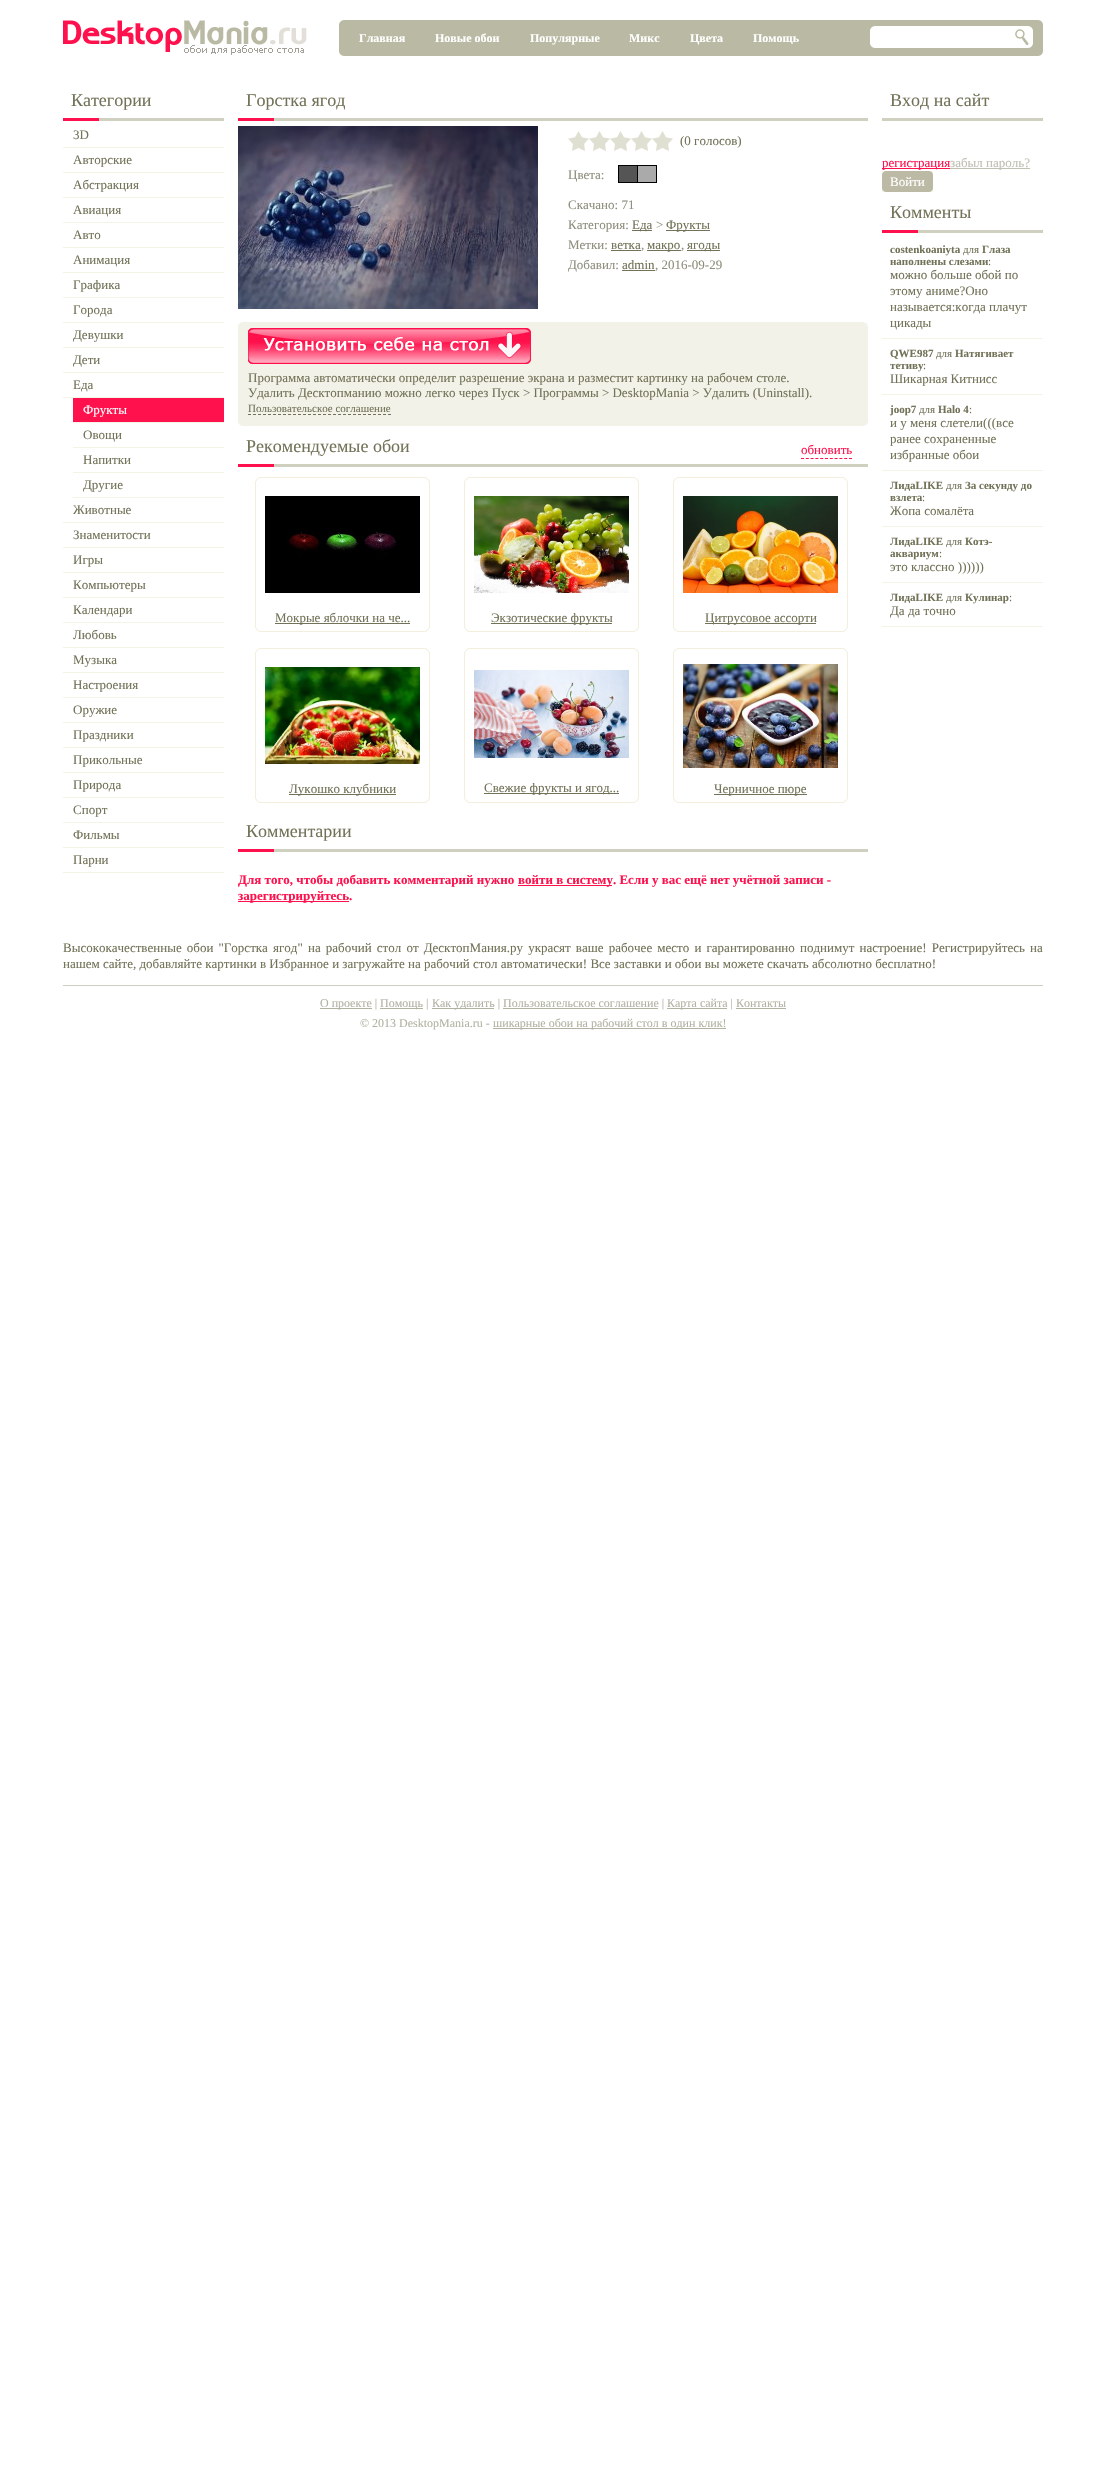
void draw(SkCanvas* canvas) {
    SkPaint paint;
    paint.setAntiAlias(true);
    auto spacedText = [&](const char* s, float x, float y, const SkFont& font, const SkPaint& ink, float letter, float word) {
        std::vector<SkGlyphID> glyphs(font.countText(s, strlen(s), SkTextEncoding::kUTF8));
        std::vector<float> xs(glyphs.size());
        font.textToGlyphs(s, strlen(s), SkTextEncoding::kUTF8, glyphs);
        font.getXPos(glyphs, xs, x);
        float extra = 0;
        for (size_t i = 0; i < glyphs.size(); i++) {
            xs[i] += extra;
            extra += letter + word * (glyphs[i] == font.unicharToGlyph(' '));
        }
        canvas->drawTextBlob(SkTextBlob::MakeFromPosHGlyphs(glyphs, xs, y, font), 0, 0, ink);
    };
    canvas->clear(0xFFFFFFFF);
    canvas->drawImageRect(SkImages::DeferredFromEncodedData(SkData::MakeFromFileName("img1.png")), SkRect::MakeXYWH(63, 20, 244, 35), SkSamplingOptions());
    paint.setColor(0xFFBABAA4);
    canvas->drawRect(SkRect::MakeXYWH(339, 20, 704, 36), paint);
    canvas->drawImageRect(SkImages::DeferredFromEncodedData(SkData::MakeFromFileName("img2.png")), SkRect::MakeXYWH(339, 20, 5, 5), SkSamplingOptions());
    canvas->drawImageRect(SkImages::DeferredFromEncodedData(SkData::MakeFromFileName("img3.png")), SkRect::MakeXYWH(1038, 20, 5, 5), SkSamplingOptions());
    SkFont font1(fontMgr->matchFamilyStyle("Liberation Serif", SkFontStyle::Bold()), 12);
    font1.setSubpixel(true);
    paint.setColor(0xFFFFFFFF);
    canvas->drawString("Главная", 359, 42, font1, paint);
    canvas->drawString("Новые обои", 435, 42, font1, paint);
    canvas->drawString("Популярные", 530, 42, font1, paint);
    canvas->drawString("Микс", 629, 42, font1, paint);
    canvas->drawString("Цвета", 690, 42, font1, paint);
    canvas->drawString("Помощь", 753, 42, font1, paint);
    canvas->drawImageRect(SkImages::DeferredFromEncodedData(SkData::MakeFromFileName("img4.png")), SkRect::MakeXYWH(870, 26, 163, 22), SkSamplingOptions());
    canvas->drawRect(SkRect::MakeXYWH(878, 32, 83, 10), paint);
    canvas->drawImageRect(SkImages::DeferredFromEncodedData(SkData::MakeFromFileName("img5.png")), SkRect::MakeXYWH(339, 51, 5, 5), SkSamplingOptions());
    canvas->drawImageRect(SkImages::DeferredFromEncodedData(SkData::MakeFromFileName("img6.png")), SkRect::MakeXYWH(1038, 51, 5, 5), SkSamplingOptions());
    paint.setColor(0xFFD0D0C0);
    canvas->drawRect(SkRect::MakeXYWH(99, 118, 125, 3), paint);
    SkFont font2(fontMgr->matchFamilyStyle("Liberation Serif", SkFontStyle::Normal()), 18);
    font2.setSubpixel(true);
    paint.setColor(0xFF727258);
    canvas->drawString("Категории", 71, 106, font2, paint);
    paint.setColor(0xFFFF114D);
    canvas->drawRect(SkRect::MakeXYWH(63, 118, 36, 3), paint);
    paint.setColor(0xFFF3F3E6);
    canvas->drawRect(SkRect::MakeXYWH(63, 147, 161, 1), paint);
    SkFont font3(fontMgr->matchFamilyStyle("Liberation Serif", SkFontStyle::Normal()), 13);
    font3.setSubpixel(true);
    paint.setColor(0xFF727258);
    canvas->drawString("3D", 73, 139, font3, paint);
    paint.setColor(0xFFF3F3E6);
    canvas->drawRect(SkRect::MakeXYWH(63, 172, 161, 1), paint);
    paint.setColor(0xFF727258);
    canvas->drawString("Авторские", 73, 164, font3, paint);
    paint.setColor(0xFFF3F3E6);
    canvas->drawRect(SkRect::MakeXYWH(63, 197, 161, 1), paint);
    paint.setColor(0xFF727258);
    canvas->drawString("Абстракция", 73, 189, font3, paint);
    paint.setColor(0xFFF3F3E6);
    canvas->drawRect(SkRect::MakeXYWH(63, 222, 161, 1), paint);
    paint.setColor(0xFF727258);
    canvas->drawString("Авиация", 73, 214, font3, paint);
    paint.setColor(0xFFF3F3E6);
    canvas->drawRect(SkRect::MakeXYWH(63, 247, 161, 1), paint);
    paint.setColor(0xFF727258);
    canvas->drawString("Авто", 73, 239, font3, paint);
    paint.setColor(0xFFF3F3E6);
    canvas->drawRect(SkRect::MakeXYWH(63, 272, 161, 1), paint);
    paint.setColor(0xFF727258);
    canvas->drawString("Анимация", 73, 264, font3, paint);
    paint.setColor(0xFFF3F3E6);
    canvas->drawRect(SkRect::MakeXYWH(63, 297, 161, 1), paint);
    paint.setColor(0xFF727258);
    canvas->drawString("Графика", 73, 289, font3, paint);
    paint.setColor(0xFFF3F3E6);
    canvas->drawRect(SkRect::MakeXYWH(63, 322, 161, 1), paint);
    paint.setColor(0xFF727258);
    canvas->drawString("Города", 73, 314, font3, paint);
    paint.setColor(0xFFF3F3E6);
    canvas->drawRect(SkRect::MakeXYWH(63, 347, 161, 1), paint);
    paint.setColor(0xFF727258);
    canvas->drawString("Девушки", 73, 339, font3, paint);
    paint.setColor(0xFFF3F3E6);
    canvas->drawRect(SkRect::MakeXYWH(63, 372, 161, 1), paint);
    paint.setColor(0xFF727258);
    canvas->drawString("Дети", 73, 364, font3, paint);
    paint.setColor(0xFFF3F3E6);
    canvas->drawRect(SkRect::MakeXYWH(63, 397, 161, 1), paint);
    paint.setColor(0xFF727258);
    canvas->drawString("Еда", 73, 389, font3, paint);
    paint.setColor(0xFFFF114D);
    canvas->drawRect(SkRect::MakeXYWH(73, 398, 151, 24), paint);
    paint.setColor(0xFFF3F3E6);
    canvas->drawRect(SkRect::MakeXYWH(73, 422, 151, 1), paint);
    paint.setColor(0xFFFFFFFF);
    canvas->drawString("Фрукты", 83, 414, font3, paint);
    paint.setColor(0xFFF3F3E6);
    canvas->drawRect(SkRect::MakeXYWH(73, 447, 151, 1), paint);
    paint.setColor(0xFF727258);
    canvas->drawString("Овощи", 83, 439, font3, paint);
    paint.setColor(0xFFF3F3E6);
    canvas->drawRect(SkRect::MakeXYWH(73, 472, 151, 1), paint);
    paint.setColor(0xFF727258);
    canvas->drawString("Напитки", 83, 464, font3, paint);
    paint.setColor(0xFFF3F3E6);
    canvas->drawRect(SkRect::MakeXYWH(73, 497, 151, 1), paint);
    paint.setColor(0xFF727258);
    canvas->drawString("Другие", 83, 489, font3, paint);
    paint.setColor(0xFFF3F3E6);
    canvas->drawRect(SkRect::MakeXYWH(63, 522, 161, 1), paint);
    paint.setColor(0xFF727258);
    canvas->drawString("Животные", 73, 514, font3, paint);
    paint.setColor(0xFFF3F3E6);
    canvas->drawRect(SkRect::MakeXYWH(63, 547, 161, 1), paint);
    paint.setColor(0xFF727258);
    canvas->drawString("Знаменитости", 73, 539, font3, paint);
    paint.setColor(0xFFF3F3E6);
    canvas->drawRect(SkRect::MakeXYWH(63, 572, 161, 1), paint);
    paint.setColor(0xFF727258);
    canvas->drawString("Игры", 73, 564, font3, paint);
    paint.setColor(0xFFF3F3E6);
    canvas->drawRect(SkRect::MakeXYWH(63, 597, 161, 1), paint);
    paint.setColor(0xFF727258);
    canvas->drawString("Компьютеры", 73, 589, font3, paint);
    paint.setColor(0xFFF3F3E6);
    canvas->drawRect(SkRect::MakeXYWH(63, 622, 161, 1), paint);
    paint.setColor(0xFF727258);
    canvas->drawString("Календари", 73, 614, font3, paint);
    paint.setColor(0xFFF3F3E6);
    canvas->drawRect(SkRect::MakeXYWH(63, 647, 161, 1), paint);
    paint.setColor(0xFF727258);
    canvas->drawString("Любовь", 73, 639, font3, paint);
    paint.setColor(0xFFF3F3E6);
    canvas->drawRect(SkRect::MakeXYWH(63, 672, 161, 1), paint);
    paint.setColor(0xFF727258);
    canvas->drawString("Музыка", 73, 664, font3, paint);
    paint.setColor(0xFFF3F3E6);
    canvas->drawRect(SkRect::MakeXYWH(63, 697, 161, 1), paint);
    paint.setColor(0xFF727258);
    canvas->drawString("Настроения", 73, 689, font3, paint);
    paint.setColor(0xFFF3F3E6);
    canvas->drawRect(SkRect::MakeXYWH(63, 722, 161, 1), paint);
    paint.setColor(0xFF727258);
    canvas->drawString("Оружие", 73, 714, font3, paint);
    paint.setColor(0xFFF3F3E6);
    canvas->drawRect(SkRect::MakeXYWH(63, 747, 161, 1), paint);
    paint.setColor(0xFF727258);
    canvas->drawString("Праздники", 73, 739, font3, paint);
    paint.setColor(0xFFF3F3E6);
    canvas->drawRect(SkRect::MakeXYWH(63, 772, 161, 1), paint);
    paint.setColor(0xFF727258);
    canvas->drawString("Прикольные", 73, 764, font3, paint);
    paint.setColor(0xFFF3F3E6);
    canvas->drawRect(SkRect::MakeXYWH(63, 797, 161, 1), paint);
    paint.setColor(0xFF727258);
    canvas->drawString("Природа", 73, 789, font3, paint);
    paint.setColor(0xFFF3F3E6);
    canvas->drawRect(SkRect::MakeXYWH(63, 822, 161, 1), paint);
    paint.setColor(0xFF727258);
    canvas->drawString("Спорт", 73, 814, font3, paint);
    paint.setColor(0xFFF3F3E6);
    canvas->drawRect(SkRect::MakeXYWH(63, 847, 161, 1), paint);
    paint.setColor(0xFF727258);
    canvas->drawString("Фильмы", 73, 839, font3, paint);
    paint.setColor(0xFFF3F3E6);
    canvas->drawRect(SkRect::MakeXYWH(63, 872, 161, 1), paint);
    paint.setColor(0xFF727258);
    canvas->drawString("Парни", 73, 864, font3, paint);
    paint.setColor(0xFFD0D0C0);
    canvas->drawRect(SkRect::MakeXYWH(274, 118, 594, 3), paint);
    paint.setColor(0xFF727258);
    canvas->drawString("Горстка ягод", 246, 106, font2, paint);
    paint.setColor(0xFFFF114D);
    canvas->drawRect(SkRect::MakeXYWH(238, 118, 36, 3), paint);
    canvas->drawImageRect(SkImages::DeferredFromEncodedData(SkData::MakeFromFileName("img7.png")), SkRect::MakeXYWH(238, 126, 300, 183), SkSamplingOptions());
    canvas->drawImageRect(SkImages::DeferredFromEncodedData(SkData::MakeFromFileName("img8.png")), SkRect::MakeXYWH(568, 131, 105, 20), SkSamplingOptions());
    paint.setColor(0xFF727258);
    canvas->drawString("(0 голосов)", 680, 145, font3, paint);
    paint.setColor(0xFF8E8E7D);
    canvas->drawString("Цвета:", 568, 179, font3, paint);
    paint.setColor(0xFF000000);
    canvas->drawRect(SkRect::MakeXYWH(618, 165, 39, 18), paint);
    paint.setColor(0xFF555555);
    canvas->drawRect(SkRect::MakeXYWH(619, 166, 18, 16), paint);
    paint.setColor(0xFFAAAAAA);
    canvas->drawRect(SkRect::MakeXYWH(638, 166, 18, 16), paint);
    paint.setColor(0xFF8E8E7D);
    canvas->drawString("Скачано: 71", 568, 209, font3, paint);
    canvas->drawString("Категория:", 568, 229, font3, paint);
    paint.setColor(0xFF727258);
    canvas->drawRect(SkRect::MakeXYWH(632, 230, 20, 1), paint);
    canvas->drawString("Еда", 632, 229, font3, paint);
    paint.setColor(0xFF8E8E7D);
    canvas->drawString(">", 656, 229, font3, paint);
    paint.setColor(0xFF727258);
    canvas->drawRect(SkRect::MakeXYWH(666, 230, 44, 1), paint);
    canvas->drawString("Фрукты", 666, 229, font3, paint);
    paint.setColor(0xFF8E8E7D);
    canvas->drawString("Метки:", 568, 249, font3, paint);
    paint.setColor(0xFF727258);
    canvas->drawString("ветка", 611, 249, font3, paint);
    canvas->drawRect(SkRect::MakeXYWH(611, 250, 30, 1), paint);
    paint.setColor(0xFF8E8E7D);
    canvas->drawString(",", 641, 249, font3, paint);
    paint.setColor(0xFF727258);
    canvas->drawRect(SkRect::MakeXYWH(647, 250, 34, 1), paint);
    canvas->drawString("макро", 647, 249, font3, paint);
    paint.setColor(0xFF8E8E7D);
    canvas->drawString(",", 681, 249, font3, paint);
    paint.setColor(0xFF727258);
    canvas->drawRect(SkRect::MakeXYWH(687, 250, 33, 1), paint);
    canvas->drawString("ягоды", 687, 249, font3, paint);
    paint.setColor(0xFF8E8E7D);
    canvas->drawString("Добавил:", 568, 269, font3, paint);
    paint.setColor(0xFF727258);
    canvas->drawString("admin", 622, 269, font3, paint);
    canvas->drawRect(SkRect::MakeXYWH(622, 270, 33, 1), paint);
    paint.setColor(0xFF8E8E7D);
    canvas->drawString(", 2016-09-29", 655, 269, font3, paint);
    paint.setColor(0xFFF2F2E8);
    canvas->drawRect(SkRect::MakeXYWH(238, 322, 630, 104), paint);
    canvas->drawImageRect(SkImages::DeferredFromEncodedData(SkData::MakeFromFileName("img9.png")), SkRect::MakeXYWH(238, 322, 4, 4), SkSamplingOptions());
    canvas->drawImageRect(SkImages::DeferredFromEncodedData(SkData::MakeFromFileName("img10.png")), SkRect::MakeXYWH(864, 322, 4, 4), SkSamplingOptions());
    canvas->drawImageRect(SkImages::DeferredFromEncodedData(SkData::MakeFromFileName("img11.png")), SkRect::MakeXYWH(248, 328, 283, 36), SkSamplingOptions());
    paint.setColor(0xFF727258);
    canvas->drawString("Программа автоматически определит разрешение экрана и разместит картинку на рабочем столе.", 248, 382, font3, paint);
    canvas->drawString("Удалить Десктопманию можно легко через Пуск > Программы > DesktopMania > Удалить (Uninstall).", 248, 397, font3, paint);
    SkFont font4(fontMgr->matchFamilyStyle("Liberation Serif", SkFontStyle::Normal()), 11);
    font4.setSubpixel(true);
    canvas->drawString("Пользовательское соглашение", 248, 412, font4, paint);
    paint.setStyle(SkPaint::kStroke_Style);
    paint.setStrokeWidth(1);
    paint.setPathEffect(SkDashPathEffect::Make({{3, 2}}, 0));
    canvas->drawPath(SkPathBuilder().moveTo(248, 414.5f).lineTo(391, 414.5f).detach(), paint);
    paint.setPathEffect(nullptr);
    canvas->drawImageRect(SkImages::DeferredFromEncodedData(SkData::MakeFromFileName("img12.png")), SkRect::MakeXYWH(238, 422, 4, 4), SkSamplingOptions());
    canvas->drawImageRect(SkImages::DeferredFromEncodedData(SkData::MakeFromFileName("img13.png")), SkRect::MakeXYWH(864, 422, 4, 4), SkSamplingOptions());
    paint.setStyle(SkPaint::kFill_Style);
    paint.setColor(0xFFD0D0C0);
    canvas->drawRect(SkRect::MakeXYWH(274, 464, 594, 3), paint);
    paint.setColor(0xFF727258);
    canvas->drawString("Рекомендуемые обои", 246, 452, font2, paint);
    paint.setStyle(SkPaint::kStroke_Style);
    paint.setColor(0xFFFB114D);
    paint.setPathEffect(SkDashPathEffect::Make({{3, 1.8f}}, 0));
    canvas->drawPath(SkPathBuilder().moveTo(801, 458.5f).lineTo(852, 458.5f).detach(), paint);
    paint.setPathEffect(nullptr);
    paint.setStyle(SkPaint::kFill_Style);
    paint.setColor(0xFFFF114D);
    canvas->drawString("обновить", 801, 454, font3, paint);
    canvas->drawRect(SkRect::MakeXYWH(238, 464, 36, 3), paint);
    canvas->drawImageRect(SkImages::DeferredFromEncodedData(SkData::MakeFromFileName("img14.png")), SkRect::MakeXYWH(255, 477, 175, 155), SkSamplingOptions());
    canvas->drawImageRect(SkImages::DeferredFromEncodedData(SkData::MakeFromFileName("img15.png")), SkRect::MakeXYWH(265, 496, 155, 97), SkSamplingOptions());
    paint.setColor(0xFF727258);
    canvas->drawRect(SkRect::MakeXYWH(275, 623, 135, 1), paint);
    canvas->drawString("Мокрые яблочки на че...", 275, 622, font3, paint);
    canvas->drawImageRect(SkImages::DeferredFromEncodedData(SkData::MakeFromFileName("img14.png")), SkRect::MakeXYWH(464, 477, 175, 155), SkSamplingOptions());
    canvas->drawImageRect(SkImages::DeferredFromEncodedData(SkData::MakeFromFileName("img16.png")), SkRect::MakeXYWH(474, 496, 155, 97), SkSamplingOptions());
    canvas->drawRect(SkRect::MakeXYWH(491, 623, 121, 1), paint);
    canvas->drawString("Экзотические фрукты", 491, 622, font3, paint);
    canvas->drawImageRect(SkImages::DeferredFromEncodedData(SkData::MakeFromFileName("img14.png")), SkRect::MakeXYWH(673, 477, 175, 155), SkSamplingOptions());
    canvas->drawImageRect(SkImages::DeferredFromEncodedData(SkData::MakeFromFileName("img17.png")), SkRect::MakeXYWH(683, 496, 155, 97), SkSamplingOptions());
    canvas->drawRect(SkRect::MakeXYWH(705, 623, 111, 1), paint);
    canvas->drawString("Цитрусовое ассорти", 705, 622, font3, paint);
    canvas->drawImageRect(SkImages::DeferredFromEncodedData(SkData::MakeFromFileName("img14.png")), SkRect::MakeXYWH(255, 648, 175, 155), SkSamplingOptions());
    canvas->drawImageRect(SkImages::DeferredFromEncodedData(SkData::MakeFromFileName("img18.png")), SkRect::MakeXYWH(265, 667, 155, 97), SkSamplingOptions());
    canvas->drawRect(SkRect::MakeXYWH(289, 794, 107, 1), paint);
    canvas->drawString("Лукошко клубники", 289, 793, font3, paint);
    canvas->drawImageRect(SkImages::DeferredFromEncodedData(SkData::MakeFromFileName("img14.png")), SkRect::MakeXYWH(464, 648, 175, 155), SkSamplingOptions());
    canvas->drawImageRect(SkImages::DeferredFromEncodedData(SkData::MakeFromFileName("img19.png")), SkRect::MakeXYWH(474, 670, 155, 88), SkSamplingOptions());
    canvas->drawRect(SkRect::MakeXYWH(484, 793, 135, 1), paint);
    canvas->drawString("Свежие фрукты и ягод...", 484, 792, font3, paint);
    canvas->drawImageRect(SkImages::DeferredFromEncodedData(SkData::MakeFromFileName("img14.png")), SkRect::MakeXYWH(673, 648, 175, 155), SkSamplingOptions());
    canvas->drawImageRect(SkImages::DeferredFromEncodedData(SkData::MakeFromFileName("img20.png")), SkRect::MakeXYWH(683, 664, 155, 104), SkSamplingOptions());
    canvas->drawRect(SkRect::MakeXYWH(714, 794, 93, 1), paint);
    canvas->drawString("Черничное пюре", 714, 793, font3, paint);
    paint.setColor(0xFFD0D0C0);
    canvas->drawRect(SkRect::MakeXYWH(274, 849, 594, 3), paint);
    paint.setColor(0xFF727258);
    canvas->drawString("Комментарии", 246, 837, font2, paint);
    paint.setColor(0xFFFF114D);
    canvas->drawRect(SkRect::MakeXYWH(238, 849, 36, 3), paint);
    SkFont font5(fontMgr->matchFamilyStyle("Liberation Serif", SkFontStyle::Bold()), 13);
    font5.setSubpixel(true);
    canvas->drawString("Для того, чтобы добавить комментарий нужно", 238, 884, font5, paint);
    canvas->drawRect(SkRect::MakeXYWH(518, 885, 94, 1), paint);
    canvas->drawString("войти в систему. Если у вас ещё нет учётной записи -", 518, 884, font5, paint);
    canvas->drawRect(SkRect::MakeXYWH(238, 901, 111, 1), paint);
    canvas->drawString("зарегистрируйтесь.", 238, 900, font5, paint);
    paint.setColor(0xFFD0D0C0);
    canvas->drawRect(SkRect::MakeXYWH(882, 118, 161, 3), paint);
    paint.setColor(0xFF727258);
    canvas->drawString("Вход на сайт", 890, 106, font2, paint);
    paint.setColor(0xFFFF114D);
    canvas->drawRect(SkRect::MakeXYWH(882, 168, 68, 1), paint);
    canvas->drawString("регистрация", 882, 167, font3, paint);
    paint.setColor(0xFFC0C0B5);
    canvas->drawRect(SkRect::MakeXYWH(950, 168, 80, 1), paint);
    canvas->drawString("забыл пароль?", 950, 167, font3, paint);
    canvas->drawImageRect(SkImages::DeferredFromEncodedData(SkData::MakeFromFileName("img21.png")), SkRect::MakeXYWH(882, 171, 47, 21), SkSamplingOptions());
    canvas->drawImageRect(SkImages::DeferredFromEncodedData(SkData::MakeFromFileName("img22.png")), SkRect::MakeXYWH(929, 171, 4, 21), SkSamplingOptions());
    paint.setColor(0xFFFFFFFF);
    canvas->drawString("Войти", 890, 186, font3, paint);
    paint.setColor(0xFFD0D0C0);
    canvas->drawRect(SkRect::MakeXYWH(918, 230, 125, 3), paint);
    paint.setColor(0xFF727258);
    canvas->drawString("Комменты", 890, 218, font2, paint);
    paint.setColor(0xFFFF114D);
    canvas->drawRect(SkRect::MakeXYWH(882, 230, 36, 3), paint);
    paint.setColor(0xFFF3F3E6);
    canvas->drawRect(SkRect::MakeXYWH(882, 338, 161, 1), paint);
    SkFont font6(fontMgr->matchFamilyStyle("Liberation Serif", SkFontStyle::Bold()), 11);
    font6.setSubpixel(true);
    paint.setColor(0xFF727258);
    canvas->drawString("costenkoaniyta", 890, 253, font6, paint);
    canvas->drawString("для", 963, 253, font4, paint);
    canvas->drawString("Глаза", 982, 253, font6, paint);
    canvas->drawString("наполнены слезами", 890, 265, font6, paint);
    canvas->drawString(":", 988, 265, font4, paint);
    canvas->drawString("можно больше обой по", 890, 279, font3, paint);
    canvas->drawString("этому аниме?Оно", 890, 295, font3, paint);
    canvas->drawString("называется:когда плачут", 890, 311, font3, paint);
    canvas->drawString("цикады", 890, 327, font3, paint);
    paint.setColor(0xFFF3F3E6);
    canvas->drawRect(SkRect::MakeXYWH(882, 394, 161, 1), paint);
    paint.setColor(0xFF727258);
    canvas->drawString("QWE987", 890, 357, font6, paint);
    canvas->drawString("для", 936, 357, font4, paint);
    canvas->drawString("Натягивает", 955, 357, font6, paint);
    canvas->drawString("тетиву", 890, 369, font6, paint);
    canvas->drawString(":", 923, 369, font4, paint);
    canvas->drawString("Шикарная Китнисс", 890, 383, font3, paint);
    paint.setColor(0xFFF3F3E6);
    canvas->drawRect(SkRect::MakeXYWH(882, 470, 161, 1), paint);
    paint.setColor(0xFF727258);
    canvas->drawString("joop7", 890, 413, font6, paint);
    canvas->drawString("для", 919, 413, font4, paint);
    canvas->drawString("Halo 4", 938, 413, font6, paint);
    canvas->drawString(":", 969, 413, font4, paint);
    canvas->drawString("и у меня слетели(((все", 890, 427, font3, paint);
    canvas->drawString("ранее сохраненные", 890, 443, font3, paint);
    canvas->drawString("избранные обои", 890, 459, font3, paint);
    paint.setColor(0xFFF3F3E6);
    canvas->drawRect(SkRect::MakeXYWH(882, 526, 161, 1), paint);
    paint.setColor(0xFF727258);
    canvas->drawString("ЛидаLIKE", 890, 489, font6, paint);
    canvas->drawString("для", 946, 489, font4, paint);
    canvas->drawString("За секунду до", 965, 489, font6, paint);
    canvas->drawString("взлета", 890, 501, font6, paint);
    canvas->drawString(":", 922, 501, font4, paint);
    canvas->drawString("Жопа сомалёта", 890, 515, font3, paint);
    paint.setColor(0xFFF3F3E6);
    canvas->drawRect(SkRect::MakeXYWH(882, 582, 161, 1), paint);
    paint.setColor(0xFF727258);
    canvas->drawString("ЛидаLIKE", 890, 545, font6, paint);
    canvas->drawString("для", 946, 545, font4, paint);
    canvas->drawString("Котэ-", 965, 545, font6, paint);
    canvas->drawString("аквариум", 890, 557, font6, paint);
    canvas->drawString(":", 939, 557, font4, paint);
    canvas->drawString("это классно ))))))", 890, 571, font3, paint);
    paint.setColor(0xFFF3F3E6);
    canvas->drawRect(SkRect::MakeXYWH(882, 626, 161, 1), paint);
    paint.setColor(0xFF727258);
    canvas->drawString("ЛидаLIKE", 890, 601, font6, paint);
    canvas->drawString("для", 946, 601, font4, paint);
    canvas->drawString("Кулинар", 965, 601, font6, paint);
    canvas->drawString(":", 1009, 601, font4, paint);
    canvas->drawString("Да да точно", 890, 615, font3, paint);
    spacedText("Высококачественные обои \"Горстка ягод\" на рабочий стол от ДесктопМания.ру украсят ваше рабочее место и гарантированно", 63, 952, font3, paint, 0, 1.9f);
    spacedText("поднимут настроение! Регистрируйтесь на", 800, 952, font3, paint, 0, 1.9f);
    canvas->drawString("нашем сайте, добавляйте картинки в Избранное и загружайте на рабочий стол автоматически! Все заставки и обои вы можете скачать абсолютно бесплатно!", 63, 968, font3, paint);
    paint.setColor(0xFFCFCFBF);
    canvas->drawRect(SkRect::MakeXYWH(63, 985, 980, 1), paint);
    paint.setColor(0xFFB2B2A3);
    canvas->drawRect(SkRect::MakeXYWH(320, 1008, 52, 1), paint);
    SkFont font7(fontMgr->matchFamilyStyle("Liberation Serif", SkFontStyle::Normal()), 12);
    font7.setSubpixel(true);
    canvas->drawString("О проекте |", 320, 1007, font7, paint);
    canvas->drawRect(SkRect::MakeXYWH(380, 1008, 43, 1), paint);
    canvas->drawString("Помощь |", 380, 1007, font7, paint);
    canvas->drawRect(SkRect::MakeXYWH(432, 1008, 62, 1), paint);
    canvas->drawString("Как удалить | Пользовательское соглашение |", 432, 1007, font7, paint);
    canvas->drawRect(SkRect::MakeXYWH(667, 1008, 60, 1), paint);
    canvas->drawString("Карта сайта | Контакты", 667, 1007, font7, paint);
    canvas->drawRect(SkRect::MakeXYWH(503, 1008, 155, 1), paint);
    canvas->drawRect(SkRect::MakeXYWH(736, 1008, 50, 1), paint);
    canvas->drawString("© 2013 DesktopMania.ru -", 360, 1027, font7, paint);
    canvas->drawRect(SkRect::MakeXYWH(493, 1028, 233, 1), paint);
    canvas->drawString("шикарные обои на рабочий стол в один клик!", 493, 1027, font7, paint);
}
